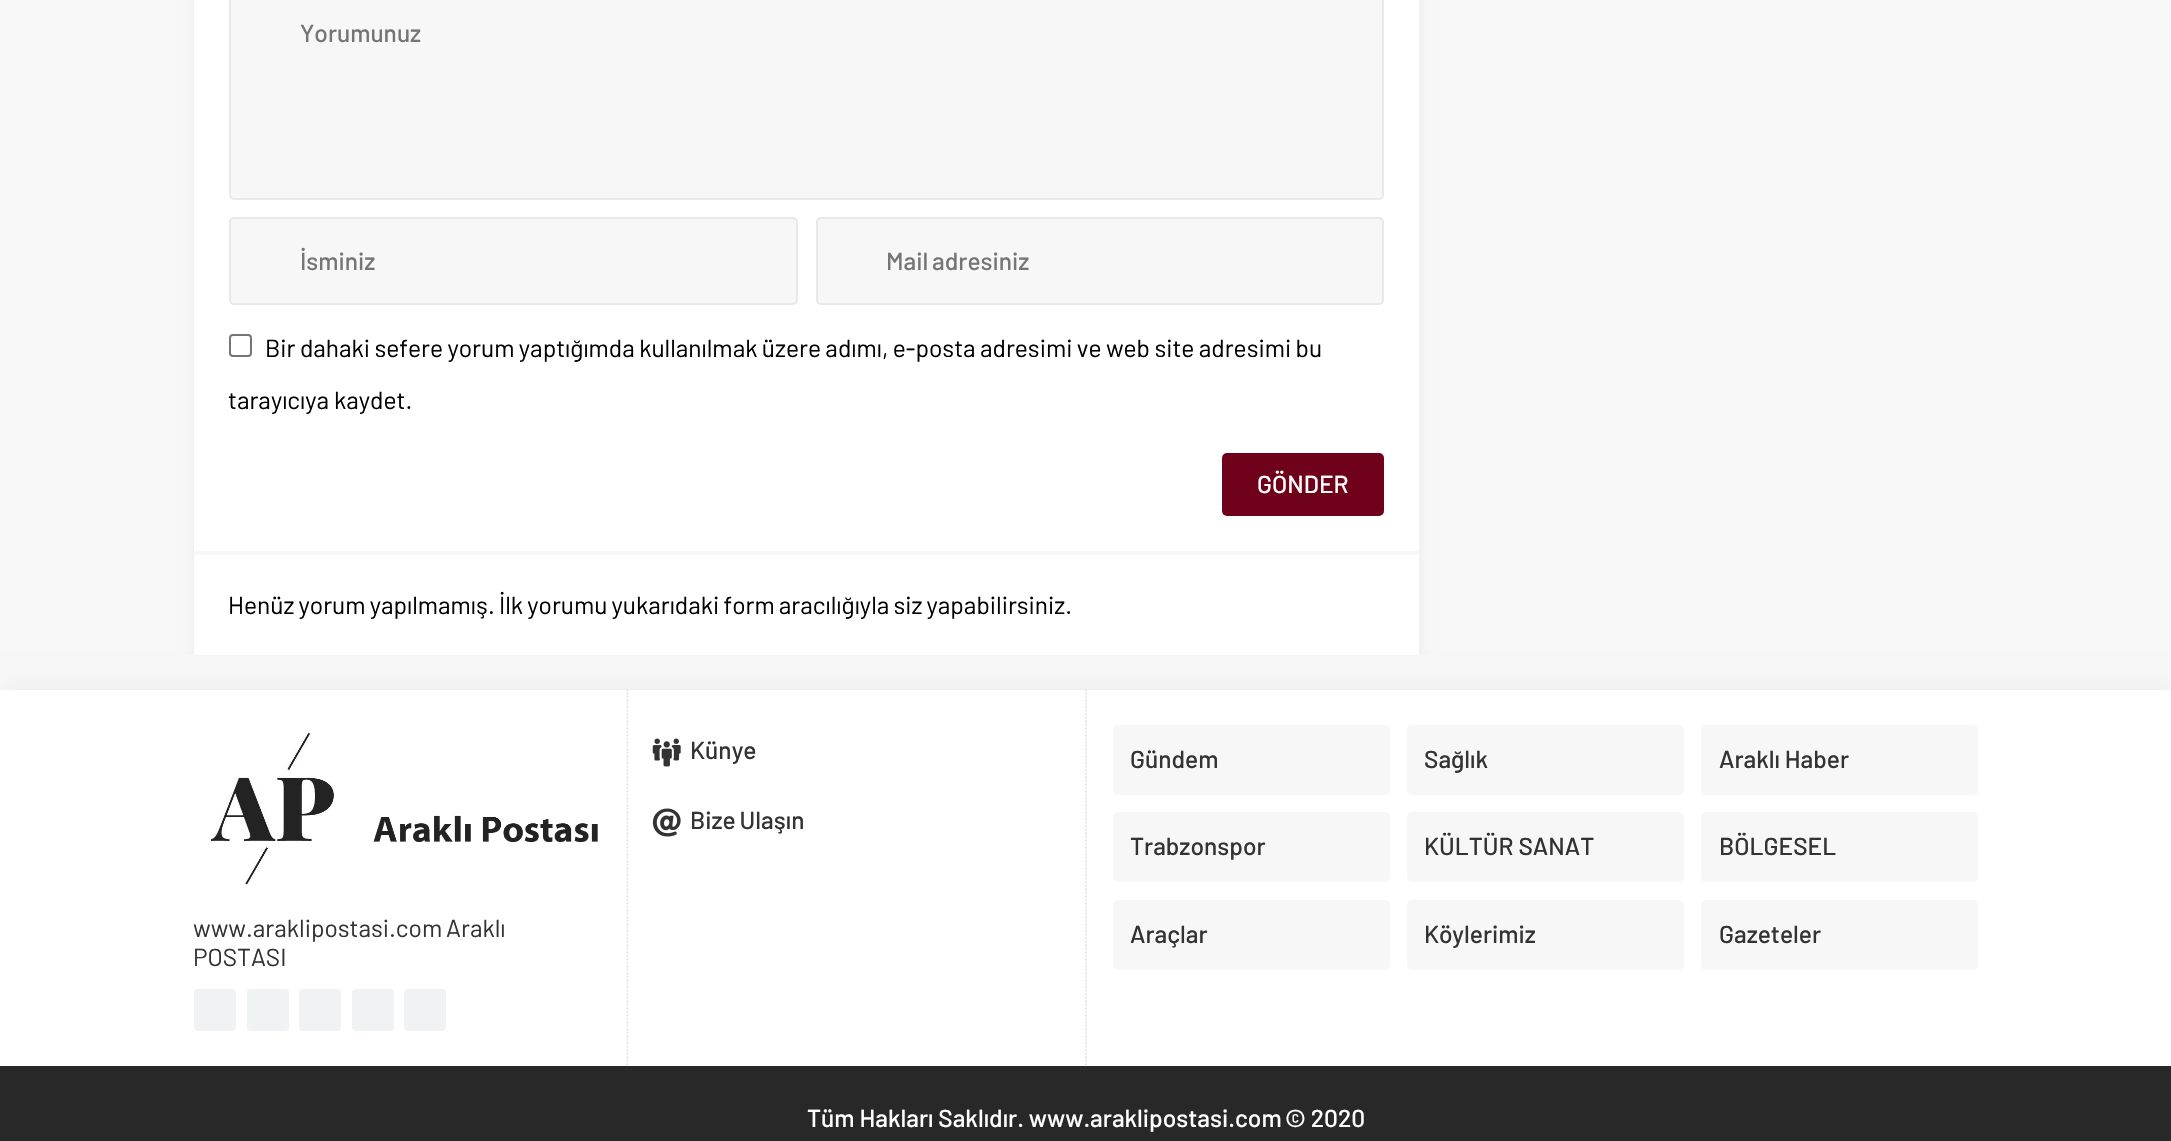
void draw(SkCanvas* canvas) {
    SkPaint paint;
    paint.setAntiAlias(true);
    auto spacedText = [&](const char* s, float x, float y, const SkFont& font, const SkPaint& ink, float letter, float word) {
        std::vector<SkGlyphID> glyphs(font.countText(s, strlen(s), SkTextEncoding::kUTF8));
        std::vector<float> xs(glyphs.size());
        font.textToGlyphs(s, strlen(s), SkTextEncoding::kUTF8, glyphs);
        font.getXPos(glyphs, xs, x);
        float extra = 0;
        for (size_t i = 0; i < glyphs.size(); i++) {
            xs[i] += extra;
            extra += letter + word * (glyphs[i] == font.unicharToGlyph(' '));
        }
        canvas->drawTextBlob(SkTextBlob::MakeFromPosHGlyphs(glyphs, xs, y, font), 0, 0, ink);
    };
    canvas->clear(0xFFF8F8F8);
    canvas->save();
    canvas->clipRect(SkRect::MakeXYWH(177, 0, 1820, 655));
    paint.setColor(0x0D000000);
    paint.setMaskFilter(SkMaskFilter::MakeBlur(kNormal_SkBlurStyle, 7));
    canvas->drawRect(SkRect::MakeXYWH(194, -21, 1225, 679), paint);
    paint.setMaskFilter(nullptr);
    canvas->restore();
    paint.setColor(0xFFFFFFFF);
    canvas->drawRect(SkRect::MakeXYWH(194, 0, 1225, 655), paint);
    paint.setColor(0xFFF7F7F7);
    canvas->drawRoundRect(SkRect::MakeXYWH(230, -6, 1153, 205), 4, 4, paint);
    paint.setStyle(SkPaint::kStroke_Style);
    paint.setStrokeWidth(2);
    paint.setColor(0xFFE9E9E9);
    canvas->drawRoundRect(SkRect::MakeXYWH(230, -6, 1153, 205), 4, 4, paint);
    SkFont font1(fontMgr->matchFamilyStyle("Barlow", SkFontStyle(500, SkFontStyle::kNormal_Width, SkFontStyle::kUpright_Slant)), 24.5f);
    font1.setSubpixel(true);
    paint.setStyle(SkPaint::kFill_Style);
    paint.setColor(0xFF757575);
    canvas->drawString("Yorumunuz", 300, 42, font1, paint);
    paint.setColor(0xFFF7F7F7);
    canvas->drawRoundRect(SkRect::MakeXYWH(230, 218, 567, 86), 4, 4, paint);
    paint.setStyle(SkPaint::kStroke_Style);
    paint.setColor(0xFFE9E9E9);
    canvas->drawRoundRect(SkRect::MakeXYWH(230, 218, 567, 86), 4, 4, paint);
    paint.setStyle(SkPaint::kFill_Style);
    paint.setColor(0xFF757575);
    canvas->drawString("İsminiz", 300, 270, font1, paint);
    paint.setColor(0xFFF7F7F7);
    canvas->drawRoundRect(SkRect::MakeXYWH(817, 218, 566, 86), 4, 4, paint);
    paint.setStyle(SkPaint::kStroke_Style);
    paint.setColor(0xFFE9E9E9);
    canvas->drawRoundRect(SkRect::MakeXYWH(817, 218, 566, 86), 4, 4, paint);
    paint.setStyle(SkPaint::kFill_Style);
    paint.setColor(0xFF757575);
    spacedText("Mail adresiniz", 886, 270, font1, paint, 0, -1);
    paint.setStyle(SkPaint::kStroke_Style);
    paint.setColor(0xFF767676);
    canvas->drawRoundRect(SkRect::MakeXYWH(230, 335, 21, 21), 3, 3, paint);
    SkFont font2(fontMgr->matchFamilyStyle("Barlow", SkFontStyle::Normal()), 24.5f);
    font2.setSubpixel(true);
    paint.setStyle(SkPaint::kFill_Style);
    paint.setColor(0xFF000000);
    spacedText("Bir dahaki sefere yorum yaptığımda kullanılmak üzere adımı, e-posta adresimi ve web site adresimi bu", 265, 357, font2, paint, 0, -0.5f);
    canvas->drawString("tarayıcıya kaydet.", 228, 409, font2, paint);
    paint.setColor(0xFF70011B);
    canvas->drawRoundRect(SkRect::MakeXYWH(1222, 453, 162, 63), 5, 5, paint);
    paint.setColor(0xFFFFFFFF);
    canvas->drawString("GÖNDER", 1257, 493, font1, paint);
    paint.setColor(0xFFF8F8F8);
    canvas->drawRect(SkRect::MakeXYWH(194, 551, 1225, 4), paint);
    paint.setColor(0xFF000000);
    spacedText("Henüz yorum yapılmamış. İlk yorumu yukarıdaki form aracılığıyla siz yapabilirsiniz.", 228, 614, font2, paint, 0, -0.75f);
    paint.setColor(0x0D000000);
    paint.setMaskFilter(SkMaskFilter::MakeBlur(kNormal_SkBlurStyle, 13));
    canvas->drawRect(SkRect::MakeXYWH(0, 690, 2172, 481), paint);
    paint.setMaskFilter(nullptr);
    paint.setColor(0xFFFFFFFF);
    canvas->drawRect(SkRect::MakeXYWH(0, 690, 2171, 376), paint);
    canvas->drawImageRect(SkImages::DeferredFromEncodedData(SkData::MakeFromFileName("img1.png")), SkRect::MakeXYWH(626, 689, 461, 376), SkSamplingOptions());
    canvas->drawImageRect(SkImages::DeferredFromEncodedData(SkData::MakeFromFileName("img2.png")), SkRect::MakeXYWH(210, 732, 388, 154), SkSamplingOptions());
    paint.setColor(0xFF333333);
    spacedText("www.araklipostasi.com Araklı", 193, 937, font2, paint, 0, -1);
    canvas->drawString("POSTASI", 193, 966, font2, paint);
    paint.setColor(0xFFF1F2F3);
    canvas->drawRoundRect(SkRect::MakeXYWH(194, 989, 42, 42), 4, 4, paint);
    canvas->drawRoundRect(SkRect::MakeXYWH(247, 989, 42, 42), 4, 4, paint);
    canvas->drawRoundRect(SkRect::MakeXYWH(299, 989, 42, 42), 4, 4, paint);
    canvas->drawRoundRect(SkRect::MakeXYWH(352, 989, 42, 42), 4, 4, paint);
    canvas->drawRoundRect(SkRect::MakeXYWH(404, 989, 42, 42), 4, 4, paint);
    canvas->drawImageRect(SkImages::DeferredFromEncodedData(SkData::MakeFromFileName("img3.png")), SkRect::MakeXYWH(652, 738, 29, 29), SkSamplingOptions());
    paint.setColor(0xFF333333);
    canvas->drawString("Künye", 690, 759, font1, paint);
    canvas->drawImageRect(SkImages::DeferredFromEncodedData(SkData::MakeFromFileName("img4.png")), SkRect::MakeXYWH(652, 808, 29, 29), SkSamplingOptions());
    spacedText("Bize Ulaşın", 690, 829, font1, paint, 0, -1);
    paint.setColor(0xFFF7F7F7);
    canvas->drawRoundRect(SkRect::MakeXYWH(1113, 725, 277, 70), 5, 5, paint);
    paint.setColor(0xFF333333);
    canvas->drawString("Gündem", 1130, 768, font1, paint);
    paint.setColor(0xFFF7F7F7);
    canvas->drawRoundRect(SkRect::MakeXYWH(1407, 725, 277, 70), 5, 5, paint);
    paint.setColor(0xFF333333);
    canvas->drawString("Sağlık", 1424, 768, font1, paint);
    paint.setColor(0xFFF7F7F7);
    canvas->drawRoundRect(SkRect::MakeXYWH(1701, 725, 277, 70), 5, 5, paint);
    paint.setColor(0xFF333333);
    canvas->drawString("Araklı Haber", 1719, 768, font1, paint);
    paint.setColor(0xFFF7F7F7);
    canvas->drawRoundRect(SkRect::MakeXYWH(1113, 812, 277, 70), 5, 5, paint);
    paint.setColor(0xFF333333);
    canvas->drawString("Trabzonspor", 1130, 855, font1, paint);
    paint.setColor(0xFFF7F7F7);
    canvas->drawRoundRect(SkRect::MakeXYWH(1407, 812, 277, 70), 5, 5, paint);
    paint.setColor(0xFF333333);
    canvas->drawString("KÜLTÜR SANAT", 1424, 855, font1, paint);
    paint.setColor(0xFFF7F7F7);
    canvas->drawRoundRect(SkRect::MakeXYWH(1701, 812, 277, 70), 5, 5, paint);
    paint.setColor(0xFF333333);
    canvas->drawString("BÖLGESEL", 1719, 855, font1, paint);
    paint.setColor(0xFFF7F7F7);
    canvas->drawRoundRect(SkRect::MakeXYWH(1113, 900, 277, 70), 5, 5, paint);
    paint.setColor(0xFF333333);
    canvas->drawString("Araçlar", 1130, 943, font1, paint);
    paint.setColor(0xFFF7F7F7);
    canvas->drawRoundRect(SkRect::MakeXYWH(1407, 900, 277, 70), 5, 5, paint);
    paint.setColor(0xFF333333);
    canvas->drawString("Köylerimiz", 1424, 943, font1, paint);
    paint.setColor(0xFFF7F7F7);
    canvas->drawRoundRect(SkRect::MakeXYWH(1701, 900, 277, 70), 5, 5, paint);
    paint.setColor(0xFF333333);
    canvas->drawString("Gazeteler", 1719, 943, font1, paint);
    paint.setColor(0xFF282828);
    canvas->drawRect(SkRect::MakeXYWH(0, 1066, 2171, 75), paint);
    paint.setColor(0xFFFFFFFF);
    canvas->drawString("Tüm Hakları Saklıdır. www.araklipostasi.com", 807, 1127, font1, paint);
    canvas->drawString("© 2020", 1285, 1127, font1, paint);
}
